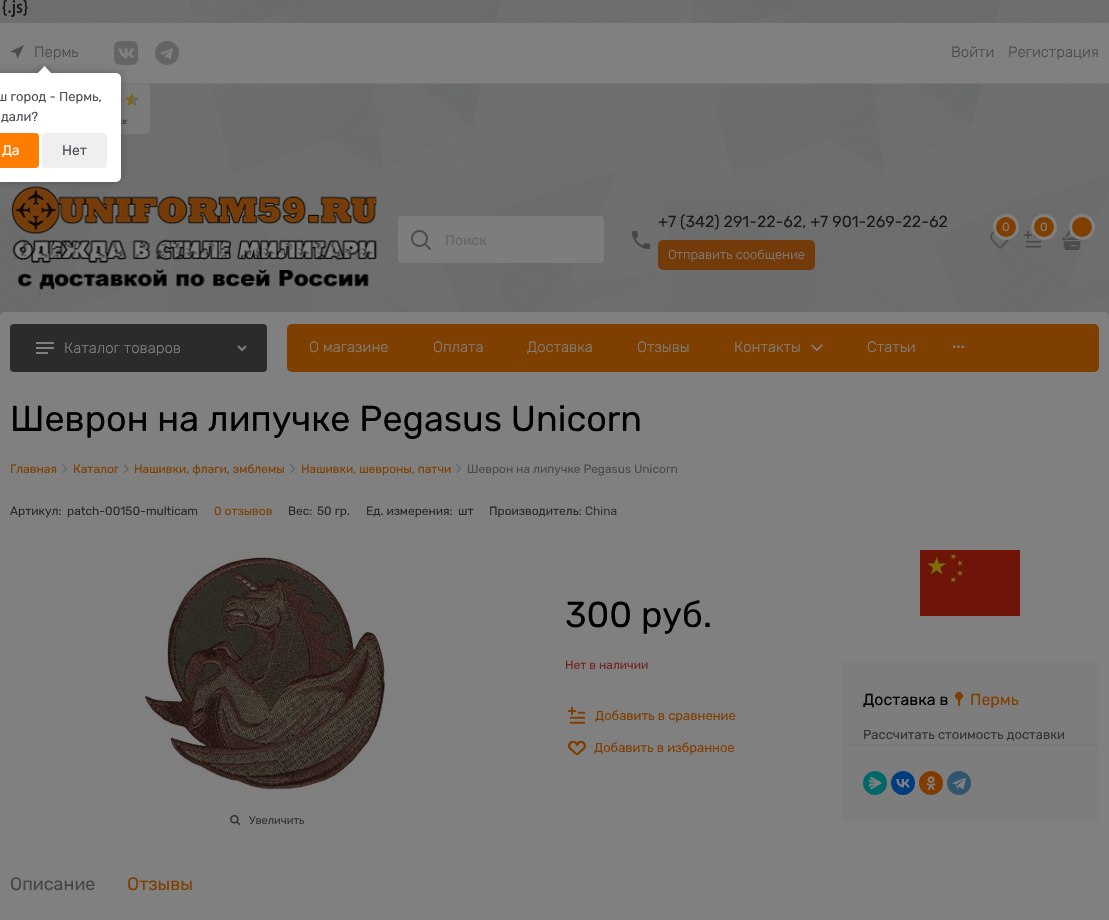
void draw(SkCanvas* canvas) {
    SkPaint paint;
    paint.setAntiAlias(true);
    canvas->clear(0xFFFFFFFF);
    canvas->drawImageRect(SkImages::DeferredFromEncodedData(SkData::MakeFromFileName("img1.png")), SkRect::MakeXYWH(0, 0, 1109, 317), SkSamplingOptions());
    canvas->drawImageRect(SkImages::DeferredFromEncodedData(SkData::MakeFromFileName("img2.png")), SkRect::MakeXYWH(2, 0, 26, 17), SkSamplingOptions());
    paint.setColor(0xFF808080);
    canvas->drawRect(SkRect::MakeXYWH(0, 23, 1109, 60), paint);
    paint.setColor(0xFF78787A);
    canvas->drawRect(SkRect::MakeXYWH(121, 83, 988, 1), paint);
    canvas->drawImageRect(SkImages::DeferredFromEncodedData(SkData::MakeFromFileName("img3.png")), SkRect::MakeXYWH(10, 45, 14, 14), SkSamplingOptions());
    SkFont font1(fontMgr->matchFamilyStyle("Rubik", SkFontStyle(300, SkFontStyle::kNormal_Width, SkFontStyle::kUpright_Slant)), 15);
    font1.setSubpixel(true);
    paint.setColor(0xFF4B4A4A);
    canvas->drawString("Пермь", 34, 57, font1, paint);
    canvas->drawImageRect(SkImages::DeferredFromEncodedData(SkData::MakeFromFileName("img4.png")), SkRect::MakeXYWH(114, 41, 24, 24), SkSamplingOptions());
    canvas->drawImageRect(SkImages::DeferredFromEncodedData(SkData::MakeFromFileName("img5.png")), SkRect::MakeXYWH(155, 41, 24, 24), SkSamplingOptions());
    canvas->drawString("Войти", 951, 57, font1, paint);
    canvas->drawString("Регистрация", 1008, 57, font1, paint);
    canvas->drawImageRect(SkImages::DeferredFromEncodedData(SkData::MakeFromFileName("img6.png")), SkRect::MakeXYWH(121, 84, 29, 50), SkSamplingOptions());
    canvas->drawImageRect(SkImages::DeferredFromEncodedData(SkData::MakeFromFileName("img7.png")), SkRect::MakeXYWH(11, 186, 366, 104), SkSamplingOptions());
    paint.setColor(0xFF7D7D7D);
    canvas->drawRoundRect(SkRect::MakeXYWH(398, 216, 206, 47), 4, 4, paint);
    canvas->drawImageRect(SkImages::DeferredFromEncodedData(SkData::MakeFromFileName("img8.png")), SkRect::MakeXYWH(411, 230, 20, 20), SkSamplingOptions());
    SkFont font2(fontMgr->matchFamilyStyle("Rubik", SkFontStyle::Normal()), 14);
    font2.setSubpixel(true);
    paint.setColor(0xFF646466);
    canvas->drawString("Поиск", 445, 245, font2, paint);
    canvas->drawImageRect(SkImages::DeferredFromEncodedData(SkData::MakeFromFileName("img9.png")), SkRect::MakeXYWH(632, 231, 18, 18), SkSamplingOptions());
    SkFont font3(fontMgr->matchFamilyStyle("Rubik", SkFontStyle::Normal()), 16);
    font3.setSubpixel(true);
    paint.setColor(0xFF1A1A1A);
    canvas->drawString("+7 (342) 291-22-62, +7 901-269-22-62", 658, 227, font3, paint);
    paint.setColor(0xFF733B0A);
    canvas->drawRoundRect(SkRect::MakeXYWH(658, 240, 157, 30), 5, 5, paint);
    SkFont font4(fontMgr->matchFamilyStyle("Rubik", SkFontStyle(300, SkFontStyle::kNormal_Width, SkFontStyle::kUpright_Slant)), 13);
    font4.setSubpixel(true);
    paint.setColor(0xFF808080);
    canvas->drawString("Отправить сообщение", 668, 259, font4, paint);
    canvas->drawImageRect(SkImages::DeferredFromEncodedData(SkData::MakeFromFileName("img10.png")), SkRect::MakeXYWH(990, 231, 20, 18), SkSamplingOptions());
    paint.setColor(0xFF7F3F00);
    canvas->drawCircle(1006, 227, 11.5f, paint);
    paint.setStyle(SkPaint::kStroke_Style);
    paint.setStrokeWidth(3);
    paint.setColor(0xFF808080);
    canvas->drawCircle(1006, 227, 11.5f, paint);
    SkFont font5(fontMgr->matchFamilyStyle("Rubik", SkFontStyle::Normal()), 12);
    font5.setSubpixel(true);
    paint.setStyle(SkPaint::kFill_Style);
    canvas->drawString("0", 1002, 231, font5, paint);
    canvas->drawImageRect(SkImages::DeferredFromEncodedData(SkData::MakeFromFileName("img11.png")), SkRect::MakeXYWH(1024, 230, 17, 18), SkSamplingOptions());
    paint.setColor(0xFF7F3F00);
    canvas->drawCircle(1044, 227, 11.5f, paint);
    paint.setStyle(SkPaint::kStroke_Style);
    paint.setColor(0xFF808080);
    canvas->drawCircle(1044, 227, 11.5f, paint);
    paint.setStyle(SkPaint::kFill_Style);
    canvas->drawString("0", 1040, 231, font5, paint);
    canvas->drawImageRect(SkImages::DeferredFromEncodedData(SkData::MakeFromFileName("img12.png")), SkRect::MakeXYWH(1062, 230, 20, 20), SkSamplingOptions());
    paint.setColor(0xFF7F3F00);
    canvas->drawCircle(1082, 227, 11.5f, paint);
    paint.setStyle(SkPaint::kStroke_Style);
    paint.setColor(0xFF808080);
    canvas->drawCircle(1082, 227, 11.5f, paint);
    paint.setStyle(SkPaint::kFill_Style);
    canvas->drawPath(SkPathBuilder().moveTo(5, 312).lineTo(1104, 312).cubicTo(1107, 312, 1109, 314, 1109, 317).lineTo(1109, 384).lineTo(0, 384).lineTo(0, 317).cubicTo(0, 314, 2, 312, 5, 312).close().detach(), paint);
    paint.setColor(0xFF2A2B2A);
    canvas->drawRoundRect(SkRect::MakeXYWH(10, 324, 257, 48), 4, 4, paint);
    canvas->drawImageRect(SkImages::DeferredFromEncodedData(SkData::MakeFromFileName("img13.png")), SkRect::MakeXYWH(36, 342, 18, 12), SkSamplingOptions());
    paint.setColor(0xFF808080);
    canvas->drawString("Каталог товаров", 64, 353, font1, paint);
    canvas->drawImageRect(SkImages::DeferredFromEncodedData(SkData::MakeFromFileName("img14.png")), SkRect::MakeXYWH(237, 345, 10, 7), SkSamplingOptions());
    paint.setColor(0xFF7F3F00);
    canvas->drawRoundRect(SkRect::MakeXYWH(287, 324, 812, 48), 5, 5, paint);
    paint.setColor(0xFF808080);
    canvas->drawString("О магазине", 309, 352, font1, paint);
    canvas->drawString("Оплата", 433, 352, font1, paint);
    canvas->drawString("Доставка", 527, 352, font1, paint);
    canvas->drawString("Отзывы", 637, 352, font1, paint);
    canvas->drawString("Контакты", 734, 352, font1, paint);
    canvas->drawImageRect(SkImages::DeferredFromEncodedData(SkData::MakeFromFileName("img15.png")), SkRect::MakeXYWH(811, 344, 12, 7), SkSamplingOptions());
    canvas->drawString("Статьи", 867, 352, font1, paint);
    canvas->drawImageRect(SkImages::DeferredFromEncodedData(SkData::MakeFromFileName("img16.png")), SkRect::MakeXYWH(953, 345, 11, 4), SkSamplingOptions());
    canvas->drawRect(SkRect::MakeXYWH(0, 384, 1109, 536), paint);
    SkFont font6(fontMgr->matchFamilyStyle("Rubik", SkFontStyle::Normal()), 36);
    font6.setSubpixel(true);
    paint.setColor(0xFF000000);
    canvas->drawString("Шеврон на липучке Pegasus Unicorn", 10, 431, font6, paint);
    paint.setColor(0xFF7F3F00);
    canvas->drawString("Главная", 10, 473, font5, paint);
    canvas->drawImageRect(SkImages::DeferredFromEncodedData(SkData::MakeFromFileName("img17.png")), SkRect::MakeXYWH(62, 464, 5, 9), SkSamplingOptions());
    canvas->drawString("Каталог", 73, 473, font5, paint);
    canvas->drawImageRect(SkImages::DeferredFromEncodedData(SkData::MakeFromFileName("img18.png")), SkRect::MakeXYWH(124, 464, 5, 9), SkSamplingOptions());
    canvas->drawString("Нашивки, флаги, эмблемы", 134, 473, font5, paint);
    canvas->drawImageRect(SkImages::DeferredFromEncodedData(SkData::MakeFromFileName("img19.png")), SkRect::MakeXYWH(290, 464, 5, 9), SkSamplingOptions());
    canvas->drawString("Нашивки, шевроны, патчи", 301, 473, font5, paint);
    canvas->drawImageRect(SkImages::DeferredFromEncodedData(SkData::MakeFromFileName("img20.png")), SkRect::MakeXYWH(456, 464, 5, 9), SkSamplingOptions());
    paint.setColor(0xFF4B4A4A);
    canvas->drawString("Шеврон на липучке Pegasus Unicorn", 467, 473, font5, paint);
    paint.setColor(0xFF26282C);
    canvas->drawString("Артикул:", 10, 515, font5, paint);
    canvas->drawString("patch-00150-multicam", 67, 515, font5, paint);
    paint.setColor(0xFF7F3F00);
    canvas->drawString("0 отзывов", 214, 515, font5, paint);
    paint.setColor(0xFF26282C);
    canvas->drawString("Вес:", 288, 515, font5, paint);
    canvas->drawString("50 гр.", 317, 515, font5, paint);
    canvas->drawString("Ед. измерения:", 366, 515, font5, paint);
    canvas->drawString("шт", 458, 515, font5, paint);
    canvas->drawString("Производитель:", 489, 515, font5, paint);
    paint.setColor(0xFF333333);
    canvas->drawString("China", 585, 515, font5, paint);
    paint.setColor(0xFF000000);
    canvas->drawString("300 руб.", 565, 627, font6, paint);
    paint.setColor(0xFF742222);
    canvas->drawString("Нет в наличии", 565, 669, font5, paint);
    canvas->drawImageRect(SkImages::DeferredFromEncodedData(SkData::MakeFromFileName("img21.png")), SkRect::MakeXYWH(568, 706, 18, 18), SkSamplingOptions());
    SkFont font7(fontMgr->matchFamilyStyle("Rubik", SkFontStyle::Normal()), 13);
    font7.setSubpixel(true);
    paint.setColor(0xFF7F3F00);
    canvas->drawString("Добавить в сравнение", 595, 720, font7, paint);
    canvas->drawImageRect(SkImages::DeferredFromEncodedData(SkData::MakeFromFileName("img22.png")), SkRect::MakeXYWH(568, 740, 18, 16), SkSamplingOptions());
    canvas->drawString("Добавить в избранное", 594, 752, font7, paint);
    canvas->drawImageRect(SkImages::DeferredFromEncodedData(SkData::MakeFromFileName("img23.png")), SkRect::MakeXYWH(920, 550, 100, 66), SkSamplingOptions());
    paint.setColor(0xFF7D7D7D);
    canvas->drawRect(SkRect::MakeXYWH(842, 662, 257, 82), paint);
    paint.setColor(0xFF78787A);
    canvas->drawRect(SkRect::MakeXYWH(842, 744, 257, 1), paint);
    paint.setColor(0xFF000000);
    canvas->drawString("Доставка в", 863, 705, font3, paint);
    canvas->drawImageRect(SkImages::DeferredFromEncodedData(SkData::MakeFromFileName("img24.png")), SkRect::MakeXYWH(955, 692, 8, 14), SkSamplingOptions());
    paint.setColor(0xFF7F3F00);
    canvas->drawString("Пермь", 970, 705, font3, paint);
    paint.setColor(0xFF333333);
    canvas->drawString("Рассчитать стоимость доставки", 863, 739, font7, paint);
    paint.setColor(0xFF7D7D7D);
    canvas->drawRect(SkRect::MakeXYWH(842, 745, 257, 76), paint);
    paint.setColor(0xFF026767);
    canvas->drawCircle(875, 783, 12, paint);
    canvas->drawImageRect(SkImages::DeferredFromEncodedData(SkData::MakeFromFileName("img25.png")), SkRect::MakeXYWH(868, 776, 14, 14), SkSamplingOptions());
    paint.setColor(0xFF003C80);
    canvas->drawCircle(903, 783, 12, paint);
    canvas->drawImageRect(SkImages::DeferredFromEncodedData(SkData::MakeFromFileName("img26.png")), SkRect::MakeXYWH(896, 779, 14, 9), SkSamplingOptions());
    paint.setColor(0xFF803C00);
    canvas->drawCircle(931, 783, 12, paint);
    canvas->drawImageRect(SkImages::DeferredFromEncodedData(SkData::MakeFromFileName("img27.png")), SkRect::MakeXYWH(926, 776, 10, 14), SkSamplingOptions());
    paint.setColor(0xFF32556E);
    canvas->drawCircle(959, 783, 12, paint);
    canvas->drawImageRect(SkImages::DeferredFromEncodedData(SkData::MakeFromFileName("img28.png")), SkRect::MakeXYWH(952, 778, 14, 12), SkSamplingOptions());
    canvas->drawImageRect(SkImages::DeferredFromEncodedData(SkData::MakeFromFileName("img29.png")), SkRect::MakeXYWH(142, 550, 248, 240), SkSamplingOptions());
    canvas->drawImageRect(SkImages::DeferredFromEncodedData(SkData::MakeFromFileName("img30.png")), SkRect::MakeXYWH(230, 814, 11, 12), SkSamplingOptions());
    SkFont font8(fontMgr->matchFamilyStyle("Rubik", SkFontStyle::Normal()), 11);
    font8.setSubpixel(true);
    paint.setColor(0xFF333333);
    canvas->drawString("Увеличить", 249, 824, font8, paint);
    SkFont font9(fontMgr->matchFamilyStyle("Rubik", SkFontStyle::Normal()), 18);
    font9.setSubpixel(true);
    paint.setColor(0xFF454548);
    canvas->drawString("Описание", 10, 890, font9, paint);
    paint.setColor(0xFF7F3F00);
    canvas->drawString("Отзывы", 127, 890, font9, paint);
    paint.setColor(0x40000000);
    paint.setMaskFilter(SkMaskFilter::MakeBlur(kNormal_SkBlurStyle, 4.5f));
    canvas->drawRoundRect(SkRect::MakeXYWH(-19, 73, 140, 109), 5, 5, paint);
    paint.setMaskFilter(nullptr);
    paint.setColor(0xFFFFFFFF);
    canvas->drawRoundRect(SkRect::MakeXYWH(-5, 73, 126, 109), 5, 5, paint);
    canvas->save();
    canvas->clipRect(SkRect::MakeXYWH(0, 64, 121, 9));
    paint.setColor(0x40000000);
    paint.setMaskFilter(SkMaskFilter::MakeBlur(kNormal_SkBlurStyle, 4.5f));
    canvas->drawRect(SkRect::MakeXYWH(39, 68, 10, 10), paint);
    paint.setMaskFilter(nullptr);
    canvas->restore();
    canvas->save();
    canvas->clipRect(SkRect::MakeXYWH(0, 64, 121, 9));
    paint.setColor(0xFFFFFFFF);
    canvas->drawPath(SkPathBuilder().moveTo(44.5f, 66).lineTo(51.5f, 73.5f).lineTo(44.5f, 80.5f).lineTo(37.5f, 73.5f).close().detach(), paint);
    canvas->restore();
    paint.setColor(0xFF4B4F58);
    canvas->drawString("ш город - Пермь,", -3, 101, font7, paint);
    canvas->drawString("дали?", 1, 121, font7, paint);
    paint.setColor(0xFFFE7D00);
    canvas->drawRoundRect(SkRect::MakeXYWH(-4, 133, 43, 35), 4, 4, paint);
    paint.setColor(0xFFFFFFFF);
    canvas->drawString("Да", 2, 155, font2, paint);
    paint.setColor(0xFFEFEFEF);
    canvas->drawRoundRect(SkRect::MakeXYWH(42, 133, 65, 35), 4, 4, paint);
    paint.setColor(0xFF4B4F58);
    canvas->drawString("Нет", 62, 155, font2, paint);
}
